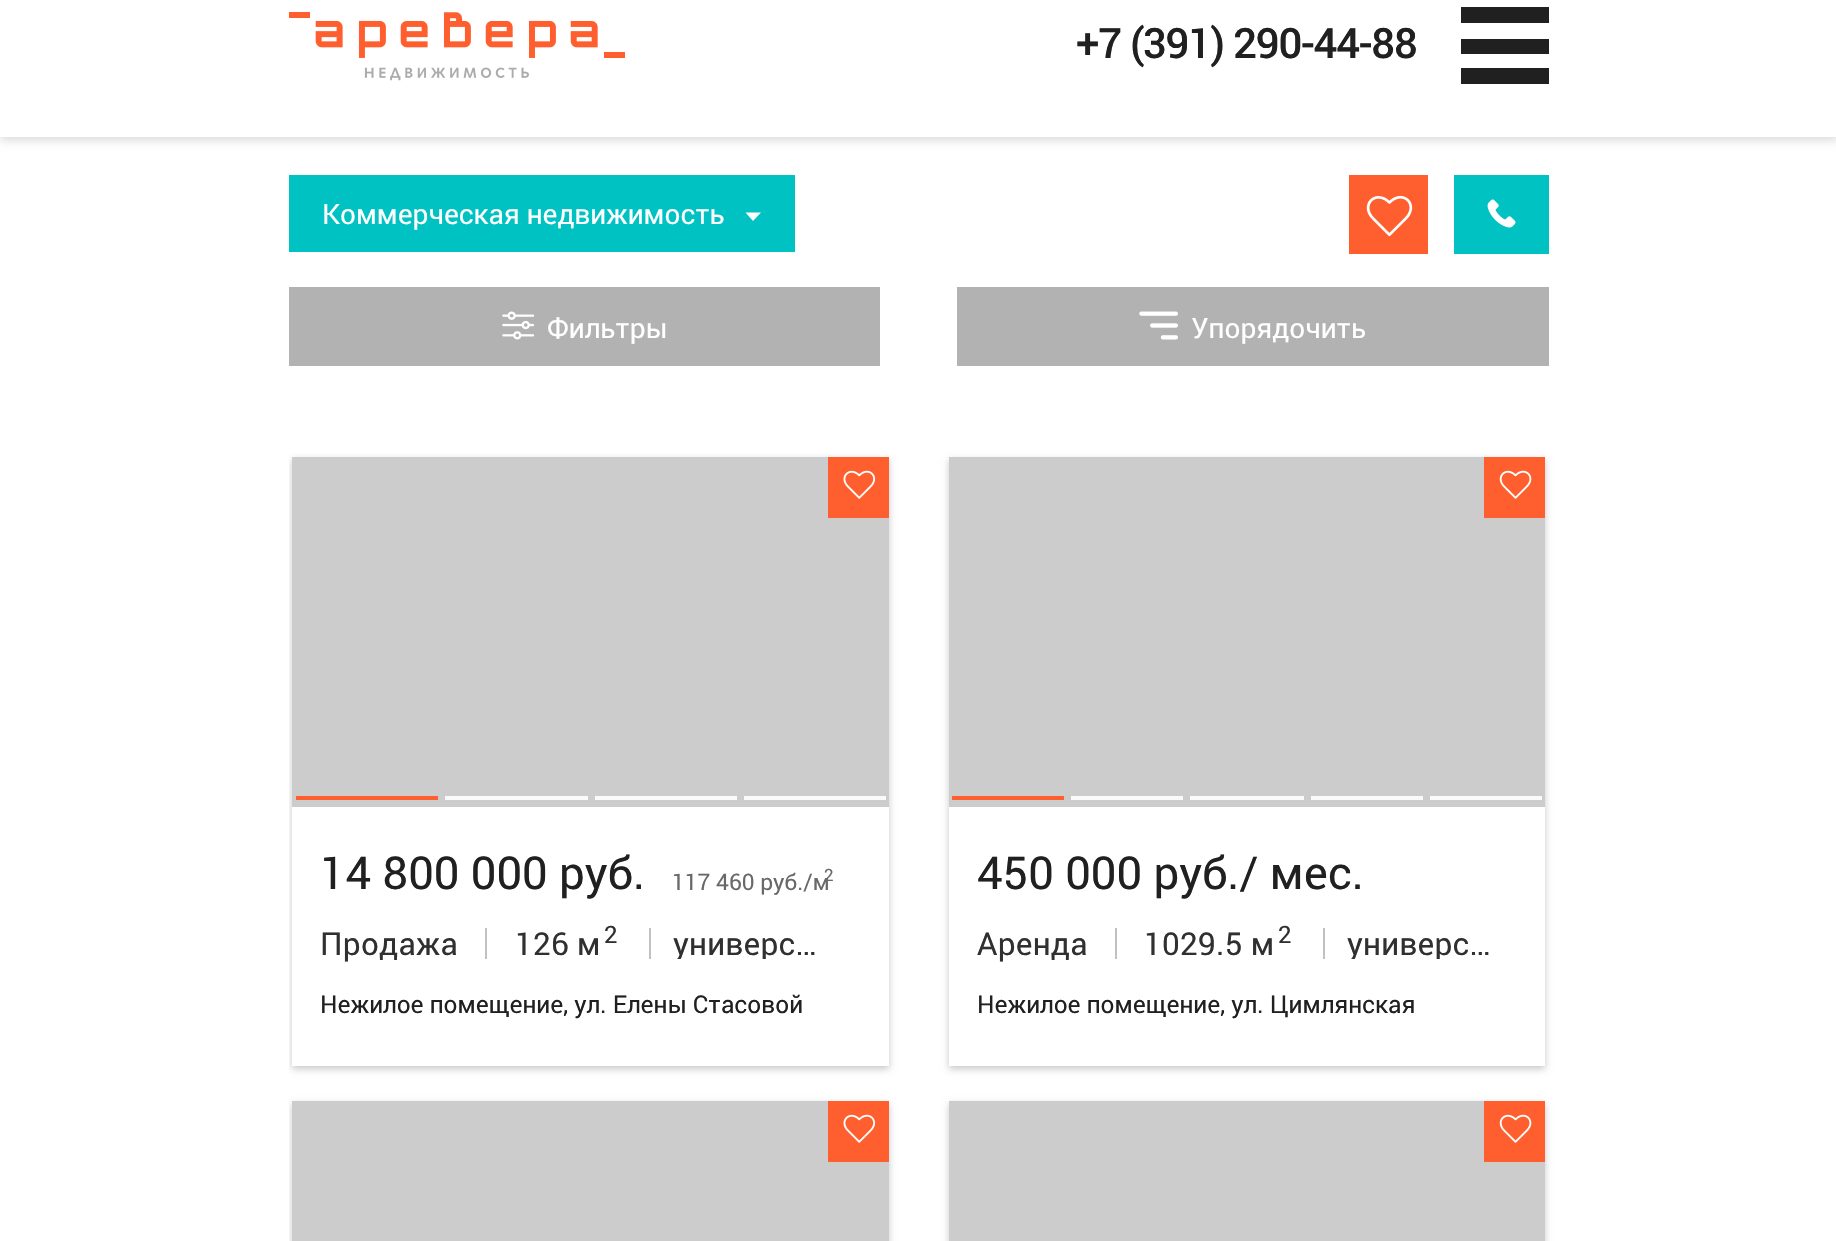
void draw(SkCanvas* canvas) {
    SkPaint paint;
    paint.setAntiAlias(true);
    auto spacedText = [&](const char* s, float x, float y, const SkFont& font, const SkPaint& ink, float letter, float word) {
        std::vector<SkGlyphID> glyphs(font.countText(s, strlen(s), SkTextEncoding::kUTF8));
        std::vector<float> xs(glyphs.size());
        font.textToGlyphs(s, strlen(s), SkTextEncoding::kUTF8, glyphs);
        font.getXPos(glyphs, xs, x);
        float extra = 0;
        for (size_t i = 0; i < glyphs.size(); i++) {
            xs[i] += extra;
            extra += letter + word * (glyphs[i] == font.unicharToGlyph(' '));
        }
        canvas->drawTextBlob(SkTextBlob::MakeFromPosHGlyphs(glyphs, xs, y, font), 0, 0, ink);
    };
    canvas->clear(0xFFFFFFFF);
    paint.setColor(0x26000001);
    paint.setMaskFilter(SkMaskFilter::MakeBlur(kNormal_SkBlurStyle, 4.5f));
    canvas->drawRect(SkRect::MakeXYWH(0, 4, 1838, 136), paint);
    paint.setMaskFilter(nullptr);
    paint.setColor(0xFFFFFFFF);
    canvas->drawRect(SkRect::MakeXYWH(0, 0, 1836, 137), paint);
    canvas->drawImageRect(SkImages::DeferredFromEncodedData(SkData::MakeFromFileName("img1.png")), SkRect::MakeXYWH(289, 12, 336, 69), SkSamplingOptions());
    SkFont font1(fontMgr->matchFamilyStyle("Roboto", SkFontStyle(500, SkFontStyle::kNormal_Width, SkFontStyle::kUpright_Slant)), 42);
    font1.setSubpixel(true);
    paint.setColor(0xFF202020);
    spacedText("+7 (391) 290-44-88", 1076, 58, font1, paint, -1.25f, 0);
    canvas->drawRect(SkRect::MakeXYWH(1461, 39, 88, 15), paint);
    canvas->drawRect(SkRect::MakeXYWH(1461, 7, 88, 16), paint);
    canvas->drawRect(SkRect::MakeXYWH(1461, 68, 88, 16), paint);
    paint.setColor(0xFF00C2C2);
    canvas->drawRect(SkRect::MakeXYWH(289, 175, 506, 77), paint);
    SkFont font2(fontMgr->matchFamilyStyle("Roboto", SkFontStyle::Normal()), 28);
    font2.setSubpixel(true);
    paint.setColor(0xFFFFFFFF);
    canvas->drawString("Коммерческая недвижимость", 322, 224, font2, paint);
    canvas->drawPath(SkPathBuilder().moveTo(753, 221).lineTo(745.5f, 212.5f).lineTo(761, 212.5f).close().detach(), paint);
    paint.setColor(0xFFFF5F2E);
    canvas->drawRect(SkRect::MakeXYWH(1349, 175, 79, 79), paint);
    canvas->drawImageRect(SkImages::DeferredFromEncodedData(SkData::MakeFromFileName("img2.png")), SkRect::MakeXYWH(1366, 195, 47, 42), SkSamplingOptions());
    paint.setColor(0xFF00C2C2);
    canvas->drawRect(SkRect::MakeXYWH(1454, 175, 95, 79), paint);
    canvas->drawImageRect(SkImages::DeferredFromEncodedData(SkData::MakeFromFileName("img3.png")), SkRect::MakeXYWH(1487, 199, 29, 29), SkSamplingOptions());
    paint.setColor(0xFFB2B2B2);
    canvas->drawRect(SkRect::MakeXYWH(289, 287, 591, 79), paint);
    canvas->drawImageRect(SkImages::DeferredFromEncodedData(SkData::MakeFromFileName("img4.png")), SkRect::MakeXYWH(502, 311, 33, 29), SkSamplingOptions());
    paint.setColor(0xFFFFFFFF);
    canvas->drawString("Фильтры", 547, 338, font2, paint);
    paint.setColor(0xFFB2B2B2);
    canvas->drawRect(SkRect::MakeXYWH(957, 287, 592, 79), paint);
    canvas->drawImageRect(SkImages::DeferredFromEncodedData(SkData::MakeFromFileName("img5.png")), SkRect::MakeXYWH(1139, 311, 39, 29), SkSamplingOptions());
    paint.setColor(0xFFFFFFFF);
    canvas->drawString("Упорядочить", 1191, 338, font2, paint);
    canvas->save();
    canvas->clipRect(SkRect::MakeXYWH(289, 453, 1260, 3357));
    paint.setColor(0x36000101);
    paint.setMaskFilter(SkMaskFilter::MakeBlur(kNormal_SkBlurStyle, 3.5f));
    canvas->drawRect(SkRect::MakeXYWH(292, 460, 597, 609), paint);
    paint.setMaskFilter(nullptr);
    canvas->restore();
    paint.setColor(0xFFFFFFFF);
    canvas->drawRect(SkRect::MakeXYWH(292, 807, 597, 259), paint);
    paint.setColor(0xFFCCCCCC);
    canvas->drawRect(SkRect::MakeXYWH(292, 457, 597, 350), paint);
    paint.setColor(0xFFFF5F2E);
    canvas->drawRect(SkRect::MakeXYWH(296, 796, 142, 4), paint);
    paint.setColor(0xFFFAFAFA);
    canvas->drawRect(SkRect::MakeXYWH(445, 796, 143, 4), paint);
    canvas->drawRect(SkRect::MakeXYWH(595, 796, 142, 4), paint);
    canvas->drawRect(SkRect::MakeXYWH(744, 796, 142, 4), paint);
    paint.setColor(0xFFFF5F2E);
    canvas->drawRect(SkRect::MakeXYWH(828, 457, 61, 61), paint);
    canvas->drawImageRect(SkImages::DeferredFromEncodedData(SkData::MakeFromFileName("img6.png")), SkRect::MakeXYWH(843, 470, 33, 29), SkSamplingOptions());
    SkFont font3(fontMgr->matchFamilyStyle("Roboto", SkFontStyle::Normal()), 45.5f);
    font3.setSubpixel(true);
    paint.setColor(0xFF202020);
    canvas->drawString("14 800 000 руб.", 320, 889, font3, paint);
    SkFont font4(fontMgr->matchFamilyStyle("Roboto", SkFontStyle::Normal()), 22.75f);
    font4.setSubpixel(true);
    paint.setColor(0xFF696969);
    canvas->drawString("117 460 руб./м", 672, 890, font4, paint);
    SkFont font5(fontMgr->matchFamilyStyle("Roboto", SkFontStyle::Normal()), 17);
    font5.setSubpixel(true);
    canvas->drawString("2", 824, 881, font5, paint);
    SkFont font6(fontMgr->matchFamilyStyle("Roboto", SkFontStyle::Normal()), 31.5f);
    font6.setSubpixel(true);
    paint.setColor(0xFF303030);
    spacedText("Продажа", 320, 955, font6, paint, 0.25f, 0);
    paint.setColor(0xFFBFC3BF);
    canvas->drawRect(SkRect::MakeXYWH(485, 928, 2, 31), paint);
    paint.setColor(0xFF303030);
    spacedText("126 м", 515, 955, font6, paint, 0.25f, 0);
    SkFont font7(fontMgr->matchFamilyStyle("Roboto", SkFontStyle::Normal()), 24);
    font7.setSubpixel(true);
    spacedText("2", 604, 943, font7, paint, 0.25f, 0);
    paint.setColor(0xFFBFC3BF);
    canvas->drawRect(SkRect::MakeXYWH(649, 928, 2, 31), paint);
    canvas->save();
    canvas->clipRect(SkRect::MakeXYWH(651, 928, 173, 31));
    paint.setColor(0xFF303030);
    spacedText("универс…", 673, 955, font6, paint, 0.25f, 0);
    canvas->restore();
    SkFont font8(fontMgr->matchFamilyStyle("Roboto", SkFontStyle::Normal()), 24.5f);
    font8.setSubpixel(true);
    paint.setColor(0xFF202020);
    canvas->drawString("Нежилое помещение, ул. Елены Стасовой", 320, 1013, font8, paint);
    paint.setColor(0x36000101);
    paint.setMaskFilter(SkMaskFilter::MakeBlur(kNormal_SkBlurStyle, 3.5f));
    canvas->drawRect(SkRect::MakeXYWH(949, 460, 596, 609), paint);
    paint.setMaskFilter(nullptr);
    paint.setColor(0xFFFFFFFF);
    canvas->drawRect(SkRect::MakeXYWH(949, 807, 596, 259), paint);
    paint.setColor(0xFFCCCCCC);
    canvas->drawRect(SkRect::MakeXYWH(949, 457, 596, 350), paint);
    paint.setColor(0xFFFF5F2E);
    canvas->drawRect(SkRect::MakeXYWH(952, 796, 112, 4), paint);
    paint.setColor(0xFFFAFAFA);
    canvas->drawRect(SkRect::MakeXYWH(1071, 796, 112, 4), paint);
    canvas->drawRect(SkRect::MakeXYWH(1190, 796, 114, 4), paint);
    canvas->drawRect(SkRect::MakeXYWH(1311, 796, 112, 4), paint);
    canvas->drawRect(SkRect::MakeXYWH(1430, 796, 112, 4), paint);
    paint.setColor(0xFFFF5F2E);
    canvas->drawRect(SkRect::MakeXYWH(1484, 457, 61, 61), paint);
    canvas->drawImageRect(SkImages::DeferredFromEncodedData(SkData::MakeFromFileName("img7.png")), SkRect::MakeXYWH(1499, 470, 33, 29), SkSamplingOptions());
    paint.setColor(0xFF202020);
    canvas->drawString("450 000 руб./ мес.", 977, 889, font3, paint);
    paint.setColor(0xFF303030);
    spacedText("Аренда", 977, 955, font6, paint, 0.25f, 0);
    paint.setColor(0xFFBFC3BF);
    canvas->drawRect(SkRect::MakeXYWH(1115, 928, 2, 31), paint);
    paint.setColor(0xFF303030);
    spacedText("1029.5 м", 1144, 955, font6, paint, 0.25f, 0);
    spacedText("2", 1278, 943, font7, paint, 0.25f, 0);
    paint.setColor(0xFFBFC3BF);
    canvas->drawRect(SkRect::MakeXYWH(1323, 928, 2, 31), paint);
    canvas->save();
    canvas->clipRect(SkRect::MakeXYWH(1325, 928, 173, 31));
    paint.setColor(0xFF303030);
    spacedText("универс…", 1347, 955, font6, paint, 0.25f, 0);
    canvas->restore();
    paint.setColor(0xFF202020);
    canvas->drawString("Нежилое помещение, ул. Цимлянская", 977, 1013, font8, paint);
    canvas->save();
    canvas->clipRect(SkRect::MakeXYWH(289, 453, 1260, 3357));
    paint.setColor(0x36000101);
    paint.setMaskFilter(SkMaskFilter::MakeBlur(kNormal_SkBlurStyle, 3.5f));
    canvas->drawRect(SkRect::MakeXYWH(292, 1104, 597, 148), paint);
    paint.setMaskFilter(nullptr);
    canvas->restore();
    paint.setColor(0xFFCCCCCC);
    canvas->drawRect(SkRect::MakeXYWH(292, 1101, 597, 140), paint);
    paint.setColor(0xFFFF5F2E);
    canvas->drawRect(SkRect::MakeXYWH(828, 1101, 61, 61), paint);
    canvas->drawImageRect(SkImages::DeferredFromEncodedData(SkData::MakeFromFileName("img6.png")), SkRect::MakeXYWH(843, 1114, 33, 29), SkSamplingOptions());
    paint.setColor(0x36000101);
    paint.setMaskFilter(SkMaskFilter::MakeBlur(kNormal_SkBlurStyle, 3.5f));
    canvas->drawRect(SkRect::MakeXYWH(949, 1104, 596, 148), paint);
    paint.setMaskFilter(nullptr);
    paint.setColor(0xFFCCCCCC);
    canvas->drawRect(SkRect::MakeXYWH(949, 1101, 596, 140), paint);
    paint.setColor(0xFFFF5F2E);
    canvas->drawRect(SkRect::MakeXYWH(1484, 1101, 61, 61), paint);
    canvas->drawImageRect(SkImages::DeferredFromEncodedData(SkData::MakeFromFileName("img7.png")), SkRect::MakeXYWH(1499, 1114, 33, 29), SkSamplingOptions());
}
